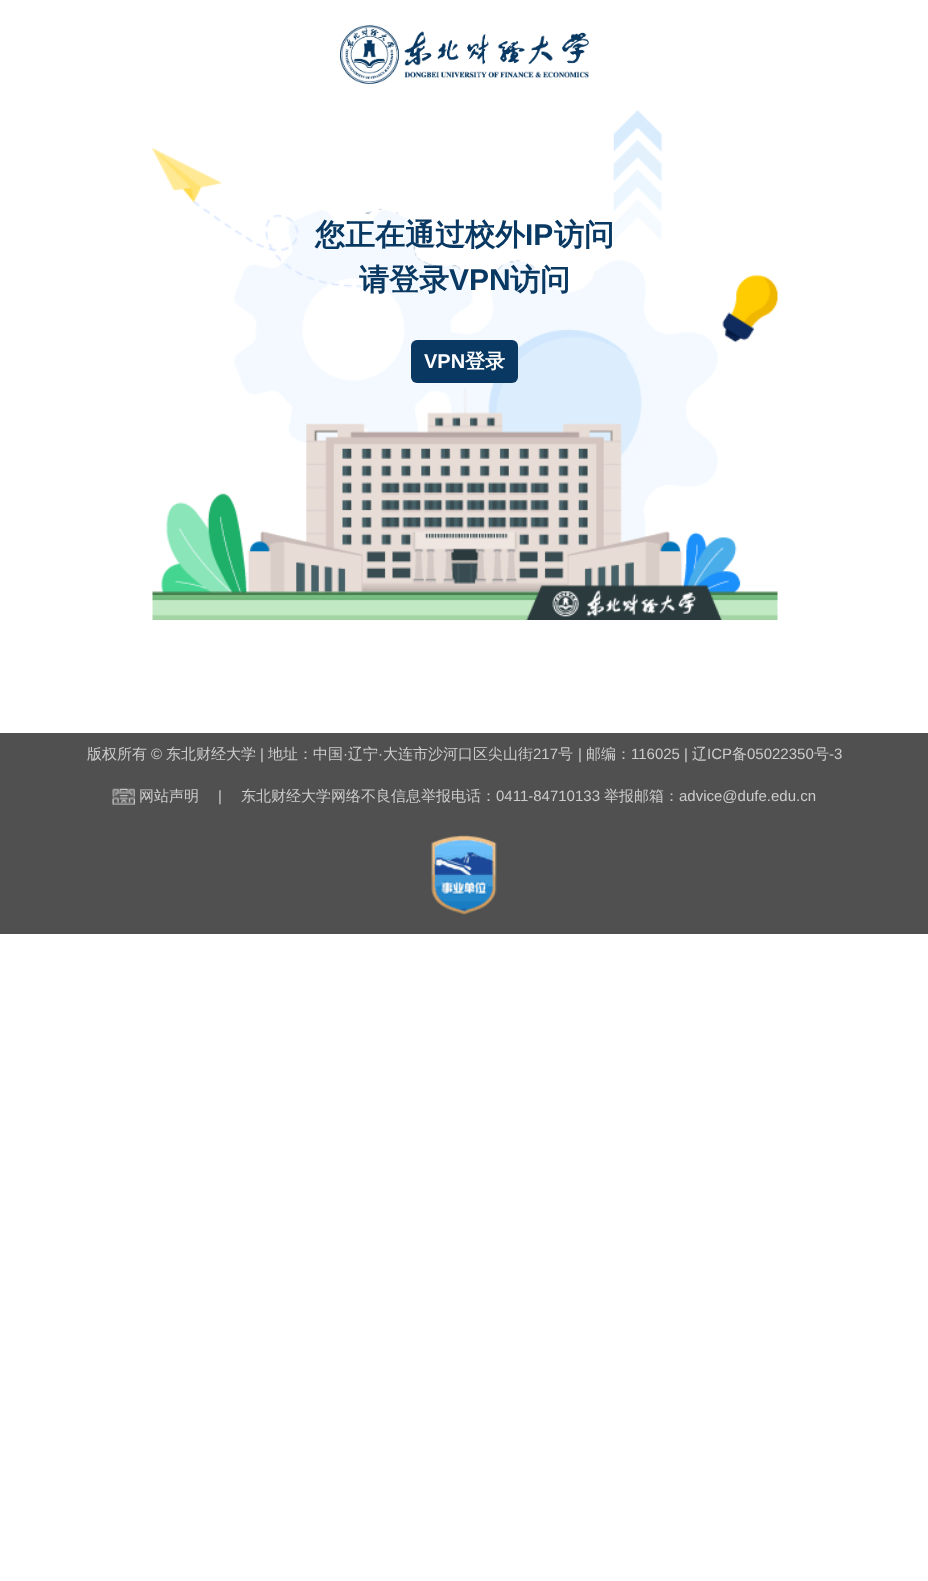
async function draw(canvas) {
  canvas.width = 928;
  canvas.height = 1581;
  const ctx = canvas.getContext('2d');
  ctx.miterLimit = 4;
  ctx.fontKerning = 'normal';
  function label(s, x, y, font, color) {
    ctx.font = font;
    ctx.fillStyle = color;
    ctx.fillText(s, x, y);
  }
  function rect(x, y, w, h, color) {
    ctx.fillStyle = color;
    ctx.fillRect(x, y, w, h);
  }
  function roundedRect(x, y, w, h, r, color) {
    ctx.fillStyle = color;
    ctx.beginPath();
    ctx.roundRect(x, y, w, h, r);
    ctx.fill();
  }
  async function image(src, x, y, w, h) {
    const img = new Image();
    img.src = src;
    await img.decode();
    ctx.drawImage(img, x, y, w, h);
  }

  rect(0, 0, 928, 1581, '#fff');
  await image('assets/img1.png', 340, 25, 249, 59);
  await image('assets/img2.png', 152, 110, 626, 510);
  label('您正在通过校外', 315, 245, 'bold 30px WenQuanYi Zen Hei', '#093962');
  label('IP', 525, 245, 'bold 30px Liberation Sans', '#093962');
  label('访问', 554, 245, 'bold 30px WenQuanYi Zen Hei', '#093962');
  label('请登录', 359, 290, 'bold 30px WenQuanYi Zen Hei', '#093962');
  label('VPN', 449, 290, 'bold 30px Liberation Sans', '#093962');
  label('访问', 510, 290, 'bold 30px WenQuanYi Zen Hei', '#093962');
  roundedRect(411, 340, 107, 43, 6, '#093962');
  label('VPN', 424, 368, 'bold 20px Liberation Sans', '#fff');
  label('登录', 465, 368, 'bold 20px WenQuanYi Zen Hei', '#fff');
  rect(0, 733, 928, 201, '#505050');
  label('版权所有', 87, 759, '500 15px WenQuanYi Zen Hei', '#ccc');
  label('©', 151, 759, '15px Liberation Sans', '#ccc');
  label('东北财经大学', 166, 759, '500 15px WenQuanYi Zen Hei', '#ccc');
  label('|', 260, 759, '15px Liberation Sans', '#ccc');
  label('地址：中国', 268, 759, '500 15px WenQuanYi Zen Hei', '#ccc');
  label('·', 343, 759, '15px Liberation Sans', '#ccc');
  label('辽宁', 348, 759, '500 15px WenQuanYi Zen Hei', '#ccc');
  label('·', 378, 759, '15px Liberation Sans', '#ccc');
  label('大连市沙河口区尖山街', 383, 759, '500 15px WenQuanYi Zen Hei', '#ccc');
  label('217', 533, 759, '15px Liberation Sans', '#ccc');
  label('号', 558, 759, '500 15px WenQuanYi Zen Hei', '#ccc');
  label('|', 578, 759, '15px Liberation Sans', '#ccc');
  label('邮编：', 586, 759, '500 15px WenQuanYi Zen Hei', '#ccc');
  label('116025 |', 631, 759, '15px Liberation Sans', '#ccc');
  label('辽', 692, 759, '500 15px WenQuanYi Zen Hei', '#ccc');
  label('ICP', 707, 759, '15px Liberation Sans', '#ccc');
  label('备', 732, 759, '500 15px WenQuanYi Zen Hei', '#ccc');
  label('05022350', 747, 759, '15px Liberation Sans', '#ccc');
  label('号', 814, 759, '500 15px WenQuanYi Zen Hei', '#ccc');
  label('-3', 829, 759, '15px Liberation Sans', '#ccc');
  await image('assets/img3.png', 112, 788, 23, 17);
  label('网站声明', 139, 801, '500 15px WenQuanYi Zen Hei', '#ccc');
  label('|', 218, 801, '15px Liberation Sans', '#ccc');
  label('东北财经大学网络不良信息举报电话：', 241, 801, '500 15px WenQuanYi Zen Hei', '#ccc');
  label('0411-84710133', 496, 801, '15px Liberation Sans', '#ccc');
  label('举报邮箱：', 604, 801, '500 15px WenQuanYi Zen Hei', '#ccc');
  label('advice@dufe.edu.cn', 679, 801, '15px Liberation Sans', '#ccc');
  await image('assets/img4.png', 431, 835, 66, 80);
}

draw(document.querySelector('canvas'));
